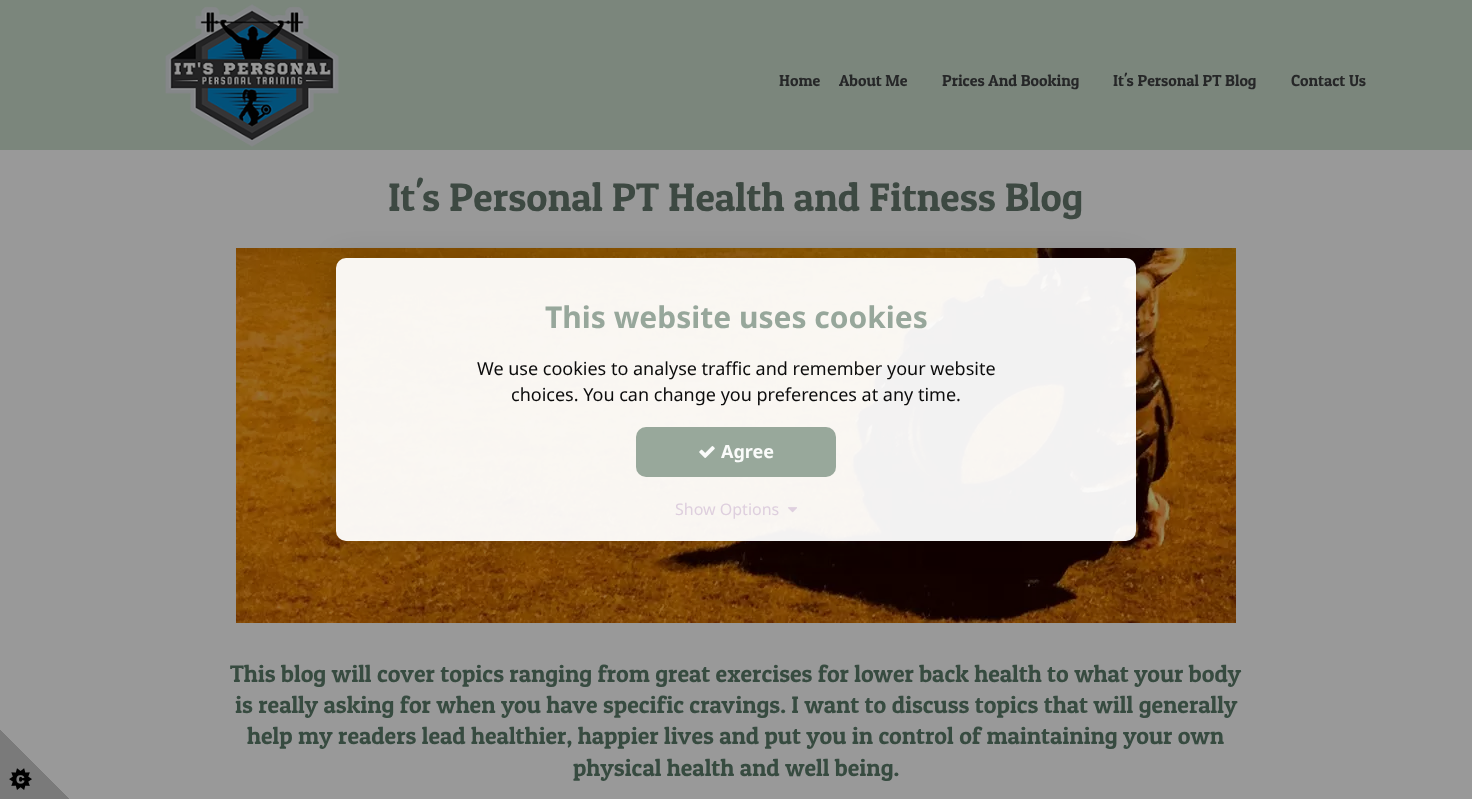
async function draw(canvas) {
  canvas.width = 1472;
  canvas.height = 799;
  const ctx = canvas.getContext('2d');
  ctx.miterLimit = 4;
  ctx.fontKerning = 'normal';
  function label(s, x, y, font, color) {
    ctx.font = font;
    ctx.fillStyle = color;
    ctx.fillText(s, x, y);
  }
  function rect(x, y, w, h, color) {
    ctx.fillStyle = color;
    ctx.fillRect(x, y, w, h);
  }
  function roundedRect(x, y, w, h, r, color) {
    ctx.fillStyle = color;
    ctx.beginPath();
    ctx.roundRect(x, y, w, h, r);
    ctx.fill();
  }
  async function image(src, x, y, w, h) {
    const img = new Image();
    img.src = src;
    await img.decode();
    ctx.drawImage(img, x, y, w, h);
  }
  let gradient, path;

  rect(0, 0, 1472, 799, '#999');
  rect(0, 0, 1472, 150, '#7b867c');
  await image('assets/img1.png', 165, 4, 174, 143);
  label('Home', 779, 86, '16px Patua One', '#262728');
  label('About Me', 839, 86, '16px Patua One', '#262728');
  label('Prices And Booking', 942, 86, '16px Patua One', '#262728');
  label('It\'s Personal PT Blog', 1113, 86, '16px Patua One', '#262728');
  label('Contact Us', 1291, 86, '16px Patua One', '#262728');
  label('It\'s Personal PT Health and Fitness Blog', 388, 211, '40px Patua One', '#3d4942');
  await image('assets/img2.png', 236, 248, 1000, 375);
  label('This blog will cover topics ranging from great exercises for lower back health to what your body', 230, 682, '24px Patua One', '#374b40');
  label('is really asking for when you have specific cravings. I want to discuss topics that will generally', 235, 713, '24px Patua One', '#374b40');
  label('help my readers lead healthier, happier lives and put you in control of maintaining your own', 247, 744, '24px Patua One', '#374b40');
  label('physical health and well being.', 573, 776, '24px Patua One', '#374b40');
  ctx.save();
  path = new Path2D('M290 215H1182V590H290ZM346 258H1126C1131.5 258 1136 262.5 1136 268V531C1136 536.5 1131.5 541 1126 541H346C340.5 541 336 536.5 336 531V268C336 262.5 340.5 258 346 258Z');
  ctx.clip(path, 'evenodd');
  ctx.fillStyle = '#00000026';
  ctx.filter = 'blur(15px)';
  ctx.beginPath();
  ctx.roundRect(336, 261, 800, 283, 10);
  ctx.fill();
  ctx.filter = 'none';
  ctx.restore();
  roundedRect(336, 258, 800, 283, 10, '#fffffff2');
  label('This website uses cookies', 545, 328, 'bold 30px Noto Sans', '#97a79b');
  label('We use cookies to analyse traffic and remember your website', 477, 375, '18px Noto Sans', '#0c0c0c');
  label('choices. You can change you preferences at any time.', 511, 401, '18px Noto Sans', '#0c0c0c');
  roundedRect(636, 427, 200, 50, 10, '#92a396f2');
  await image('assets/img3.png', 699, 446, 16, 12);
  label('Agree', 721, 458, 'bold 18px Noto Sans', '#fafbfa');
  label('Show Options', 675, 515, '16px Noto Sans', '#decfde');
  await image('assets/img4.png', 788, 507, 9, 6);
  gradient = ctx.createLinearGradient(70, 729, 0, 799);
  gradient.addColorStop(0.5, '#999');
  gradient.addColorStop(0.5, '#7a7a7a');
  ctx.fillStyle = gradient;
  ctx.fillRect(0, 729, 70, 70);
  await image('assets/img5.png', 9, 768, 23, 22);
}

draw(document.querySelector('canvas'));
